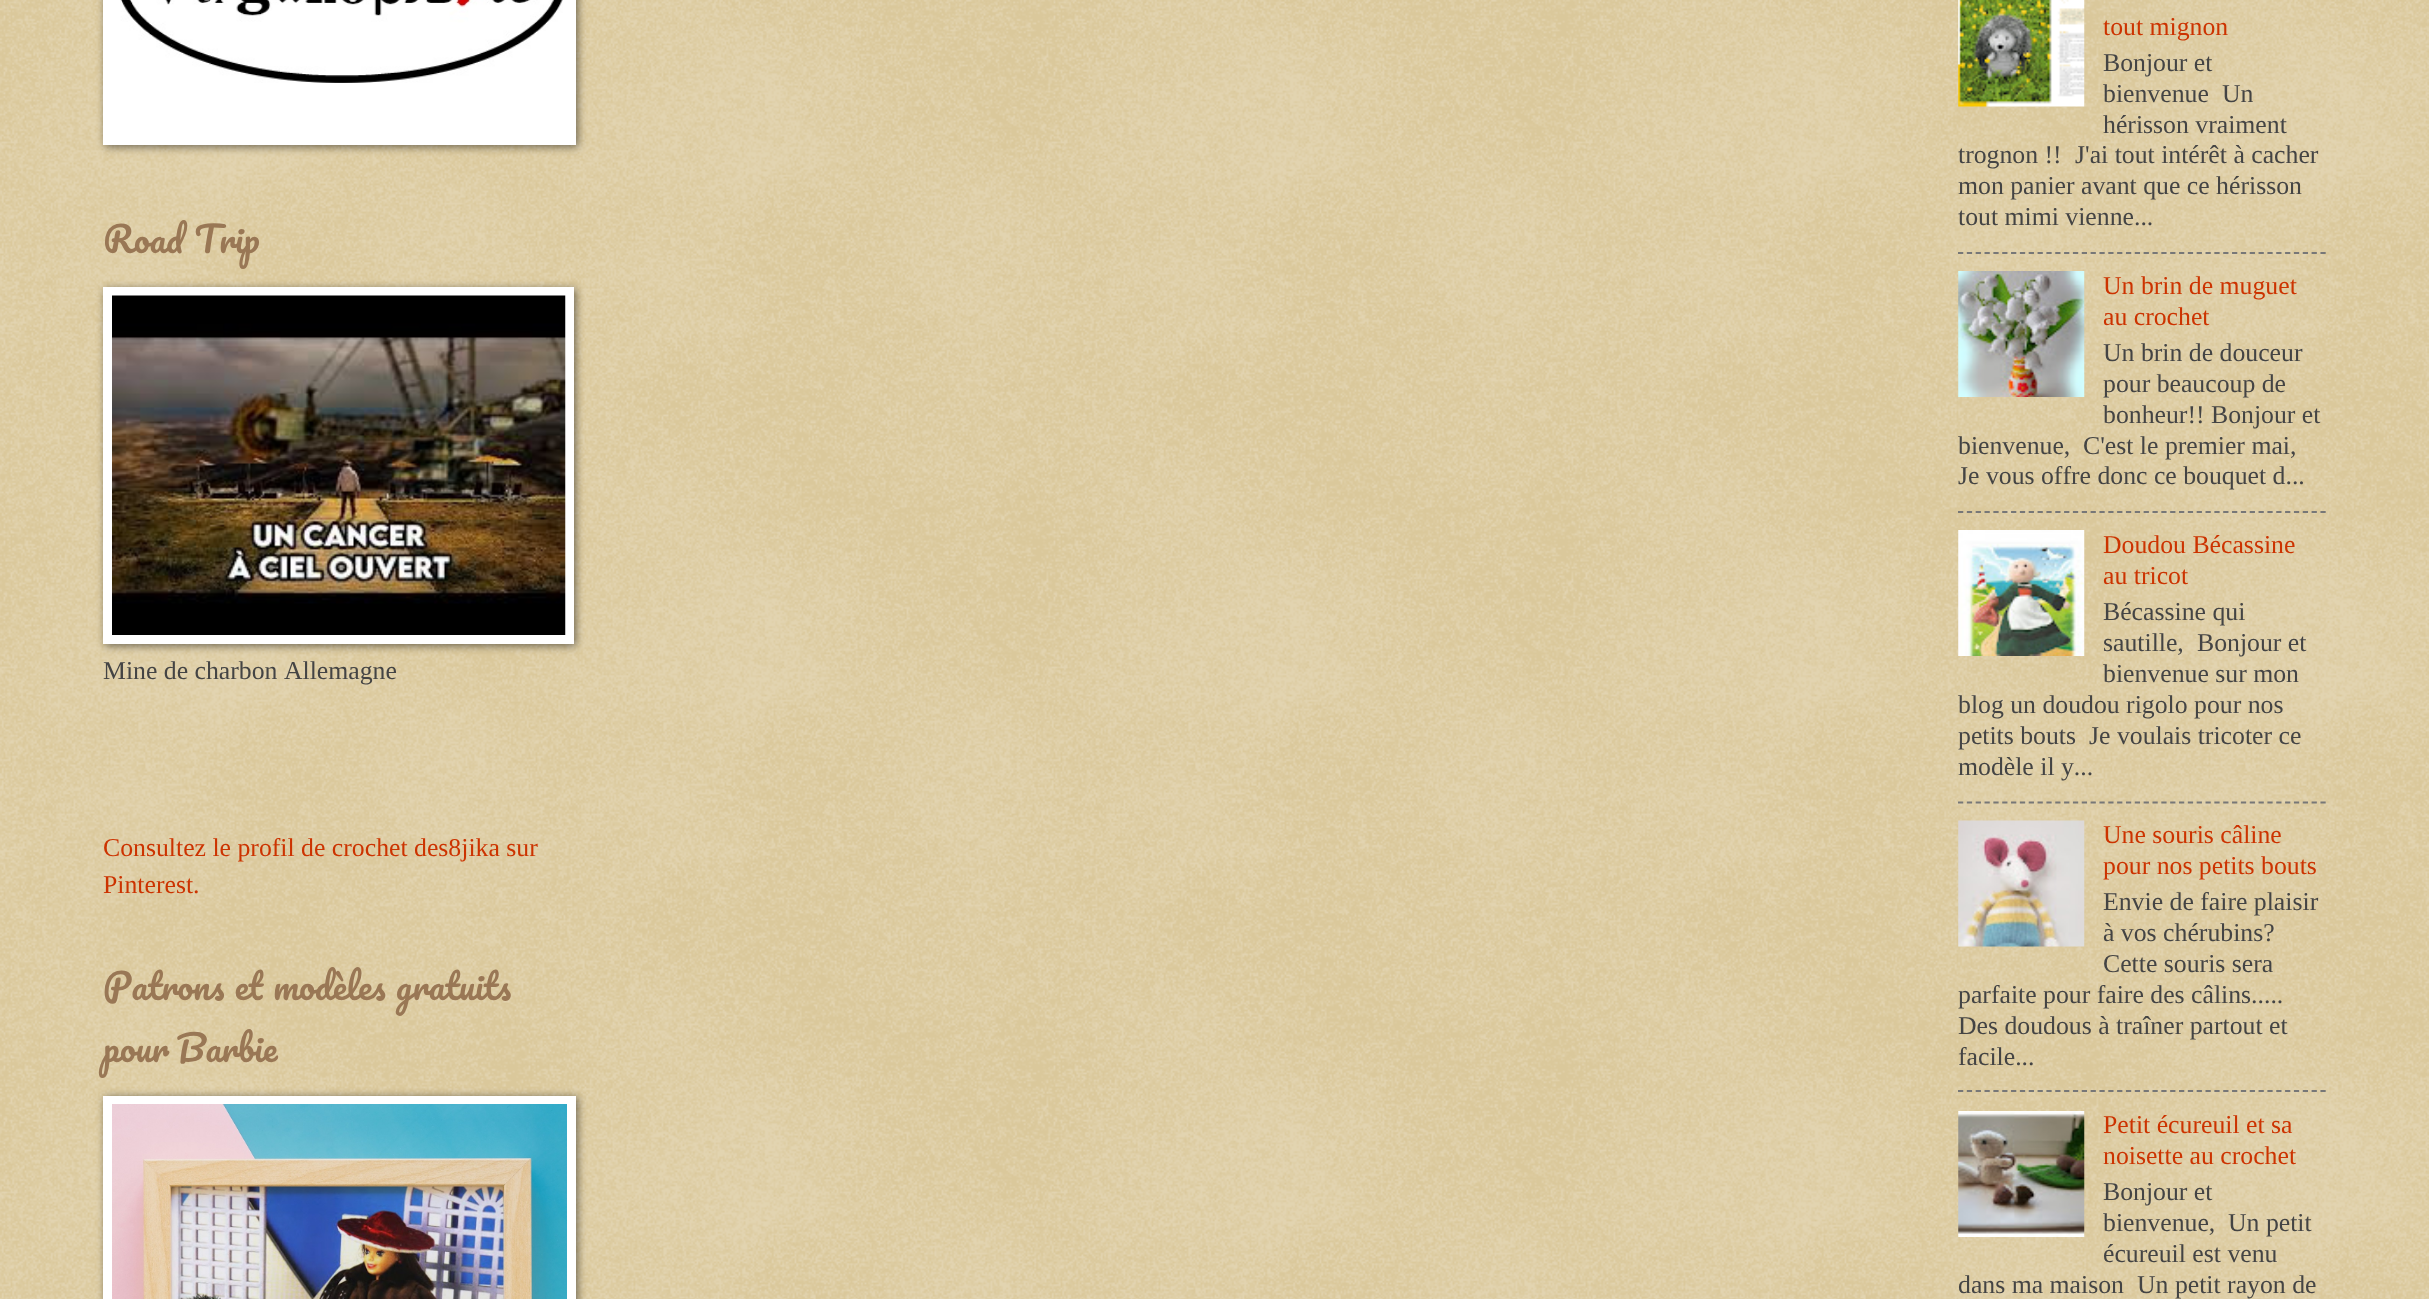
async function draw(canvas) {
  canvas.width = 2429;
  canvas.height = 1299;
  const ctx = canvas.getContext('2d');
  ctx.miterLimit = 4;
  ctx.fontKerning = 'none';
  function label(s, x, y, font, color) {
    ctx.font = font;
    ctx.fillStyle = color;
    ctx.fillText(s, x, y);
  }
  function rect(x, y, w, h, color) {
    ctx.fillStyle = color;
    ctx.fillRect(x, y, w, h);
  }
  async function image(src, x, y, w, h) {
    const img = new Image();
    img.src = src;
    await img.decode();
    ctx.drawImage(img, x, y, w, h);
  }
  let path;

  rect(0, 0, 2429, 1299, '#c0a154');
  await image('assets/img1.png', 0, 0, 2429, 1299);
  ctx.fillStyle = '#00000080';
  ctx.filter = 'blur(4.5px)';
  ctx.beginPath();
  ctx.rect(105, -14, 473, 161);
  ctx.fill();
  ctx.filter = 'none';
  rect(103, 0, 473, 145, '#fff');
  await image('assets/img2.png', 120, 0, 443, 83);
  ctx.wordSpacing = '2px';
  label('Road Trip', 103, 253, '35px Pacifico', '#975');
  ctx.fillStyle = '#00000080';
  ctx.filter = 'blur(4.5px)';
  ctx.beginPath();
  ctx.rect(105, 289, 471, 357);
  ctx.fill();
  ctx.filter = 'none';
  rect(103, 287, 471, 357, '#fff');
  await image('assets/img3.png', 112, 295, 454, 340);
  ctx.wordSpacing = '0px';
  label('Mine de charbon Allemagne', 103, 679, '25.75px Liberation Serif', '#444');
  label('Consultez le profil de crochet des8jika sur', 103, 856, '25.75px Liberation Serif', '#c30');
  label('Pinterest.', 103, 893, '25.75px Liberation Serif', '#c30');
  ctx.wordSpacing = '1px';
  label('Patrons et modèles gratuits', 103, 1000, '35px Pacifico', '#975');
  ctx.wordSpacing = '-2px';
  label('pour Barbie', 103, 1062, '35px Pacifico', '#975');
  ctx.fillStyle = '#00000080';
  ctx.filter = 'blur(4.5px)';
  ctx.beginPath();
  ctx.rect(105, 1097, 473, 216);
  ctx.fill();
  ctx.filter = 'none';
  rect(103, 1096, 473, 203, '#fff');
  await image('assets/img4.png', 112, 1104, 455, 195);
  await image('assets/img5.png', 1958, 0, 127, 107);
  ctx.wordSpacing = '0px';
  label('tout mignon', 2103, 35, '25.75px Liberation Serif', '#c30');
  label('Bonjour et', 2103, 71, '25.75px Liberation Serif', '#444');
  label('bienvenue', 2103, 102, '25.75px Liberation Serif', '#444');
  label('Un', 2222, 102, '25.75px Liberation Serif', '#444');
  label('hérisson vraiment', 2103, 133, '25.75px Liberation Serif', '#444');
  label('trognon !!', 1958, 163, '25.75px Liberation Serif', '#444');
  label('J\'ai tout intérêt à cacher', 2075, 163, '25.75px Liberation Serif', '#444');
  label('mon panier avant que ce hérisson', 1958, 194, '25.75px Liberation Serif', '#444');
  label('tout mimi vienne...', 1958, 225, '25.75px Liberation Serif', '#444');
  path = new Path2D('M1958 253H2326');
  ctx.strokeStyle = '#777';
  ctx.lineWidth = 1.8;
  ctx.setLineDash([5.25, 3.59]);
  ctx.stroke(path);
  await image('assets/img6.png', 1958, 271, 127, 126);
  label('Un brin de muguet', 2103, 294, '25.75px Liberation Serif', '#c30');
  label('au crochet', 2103, 325, '25.75px Liberation Serif', '#c30');
  label('Un brin de douceur', 2103, 361, '25.75px Liberation Serif', '#444');
  label('pour beaucoup de', 2103, 392, '25.75px Liberation Serif', '#444');
  label('bonheur!! Bonjour et', 2103, 423, '25.75px Liberation Serif', '#444');
  label('bienvenue,', 1958, 454, '25.75px Liberation Serif', '#444');
  label('C\'est le premier mai,', 2083, 454, '25.75px Liberation Serif', '#444');
  label('Je vous offre donc ce bouquet d...', 1958, 484, '25.75px Liberation Serif', '#444');
  path = new Path2D('M1958 512H2326');
  ctx.stroke(path);
  await image('assets/img7.png', 1958, 530, 127, 126);
  label('Doudou Bécassine', 2103, 553, '25.75px Liberation Serif', '#c30');
  label('au tricot', 2103, 584, '25.75px Liberation Serif', '#c30');
  label('Bécassine qui', 2103, 620, '25.75px Liberation Serif', '#444');
  label('sautille,', 2103, 651, '25.75px Liberation Serif', '#444');
  label('Bonjour et', 2197, 651, '25.75px Liberation Serif', '#444');
  label('bienvenue sur mon', 2103, 682, '25.75px Liberation Serif', '#444');
  label('blog un doudou rigolo pour nos', 1958, 713, '25.75px Liberation Serif', '#444');
  label('petits bouts', 1958, 744, '25.75px Liberation Serif', '#444');
  label('Je voulais tricoter ce', 2089, 744, '25.75px Liberation Serif', '#444');
  label('modèle il y...', 1958, 775, '25.75px Liberation Serif', '#444');
  path = new Path2D('M1958 802.5H2326');
  ctx.stroke(path);
  await image('assets/img8.png', 1958, 820, 127, 127);
  label('Une souris câline', 2103, 843, '25.75px Liberation Serif', '#c30');
  label('pour nos petits bouts', 2103, 874, '25.75px Liberation Serif', '#c30');
  label('Envie de faire plaisir', 2103, 910, '25.75px Liberation Serif', '#444');
  label('à vos chérubins?', 2103, 941, '25.75px Liberation Serif', '#444');
  label('Cette souris sera', 2103, 972, '25.75px Liberation Serif', '#444');
  label('parfaite pour faire des câlins.....', 1958, 1003, '25.75px Liberation Serif', '#444');
  label('Des doudous à traîner partout et', 1958, 1034, '25.75px Liberation Serif', '#444');
  label('facile...', 1958, 1065, '25.75px Liberation Serif', '#444');
  path = new Path2D('M1958 1091H2326');
  ctx.stroke(path);
  await image('assets/img9.png', 1958, 1111, 127, 126);
  label('Petit écureuil et sa', 2103, 1133, '25.75px Liberation Serif', '#c30');
  label('noisette au crochet', 2103, 1164, '25.75px Liberation Serif', '#c30');
  label('Bonjour et', 2103, 1200, '25.75px Liberation Serif', '#444');
  label('bienvenue,', 2103, 1231, '25.75px Liberation Serif', '#444');
  label('Un petit', 2228, 1231, '25.75px Liberation Serif', '#444');
  label('écureuil est venu', 2103, 1262, '25.75px Liberation Serif', '#444');
  label('dans ma maison', 1958, 1293, '25.75px Liberation Serif', '#444');
  label('Un petit rayon de', 2137, 1293, '25.75px Liberation Serif', '#444');
}

draw(document.querySelector('canvas'));
